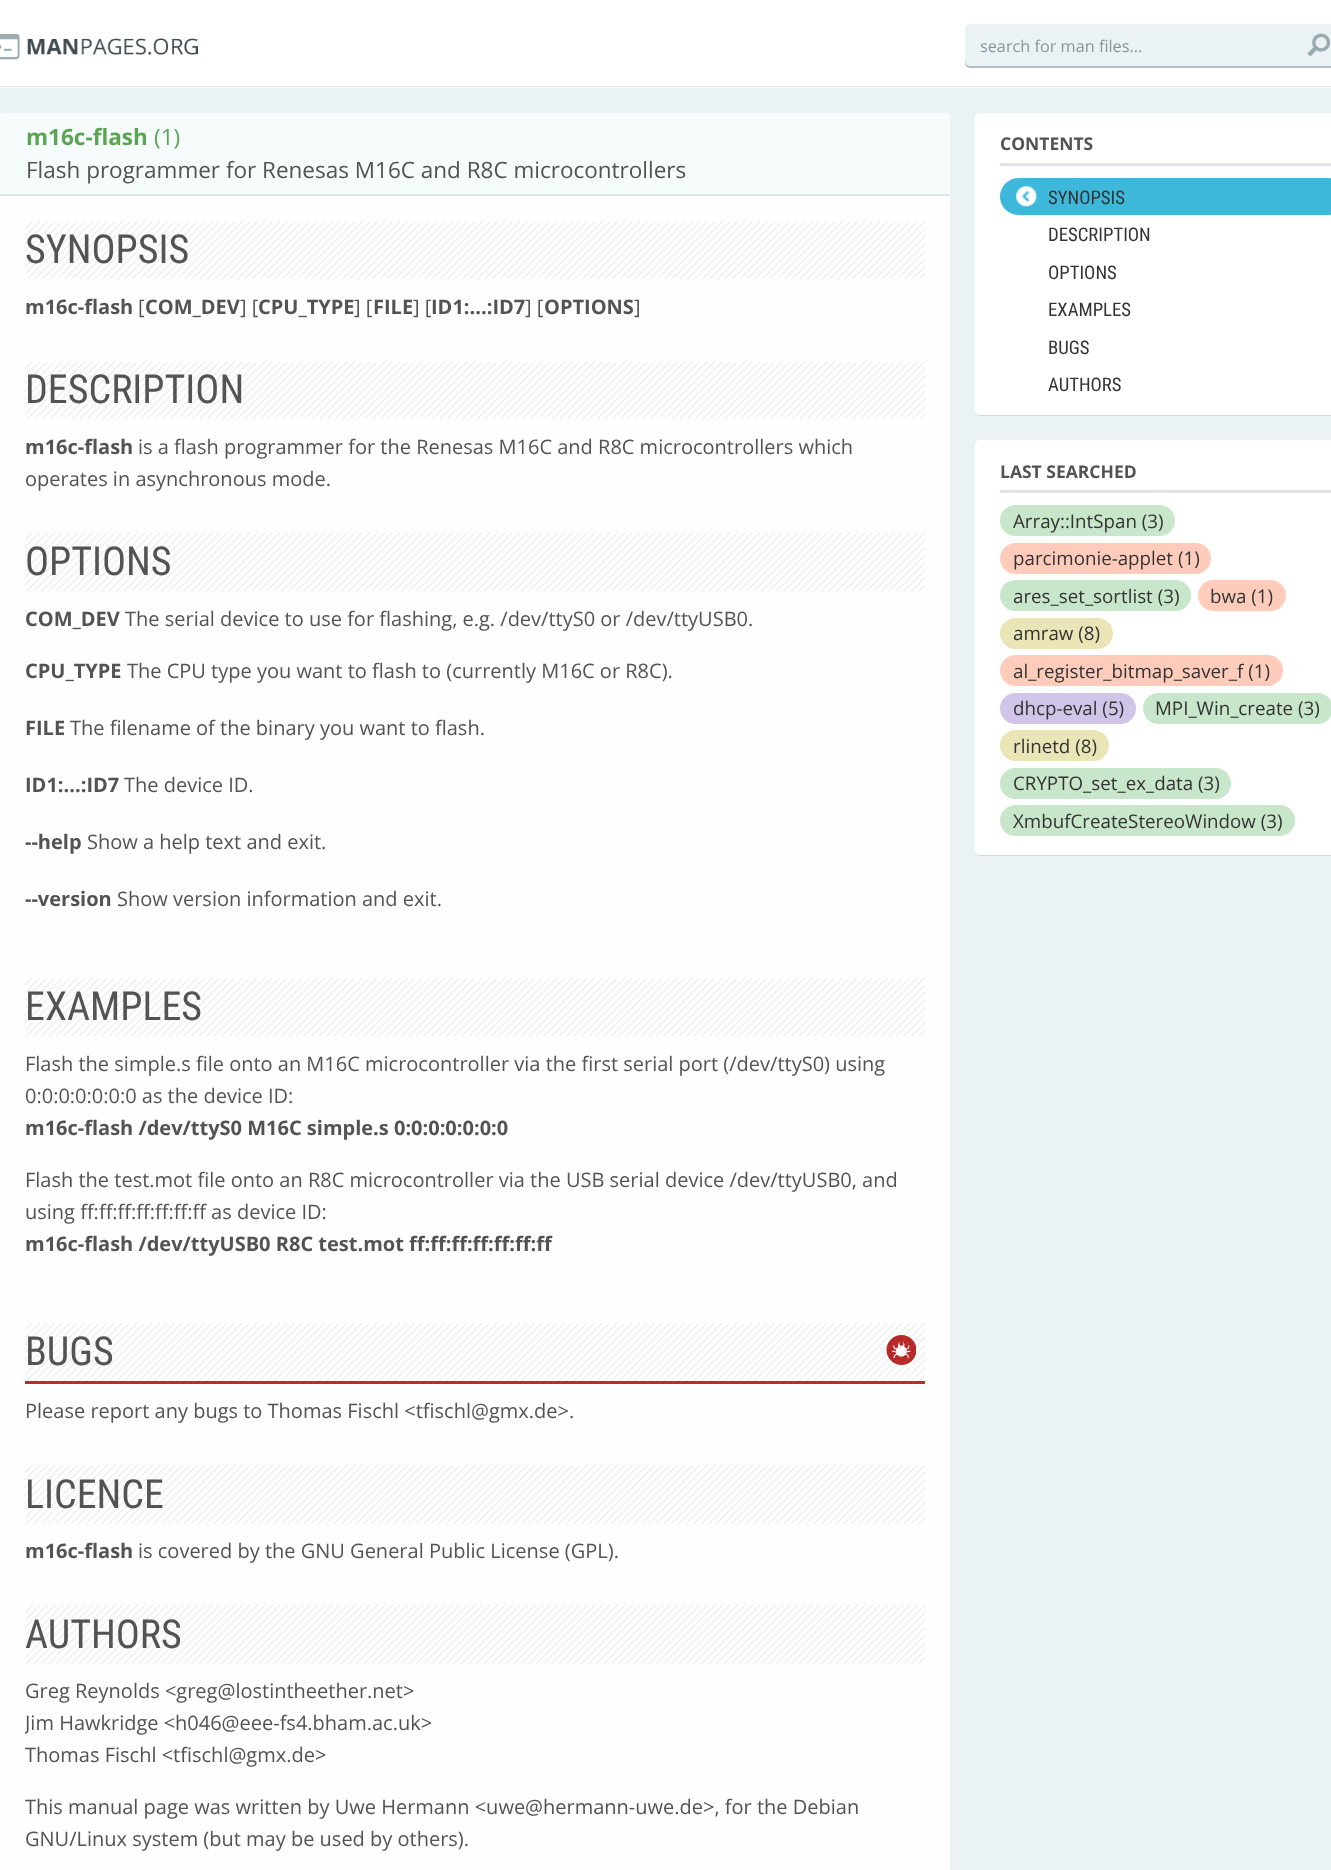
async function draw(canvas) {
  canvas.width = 1331;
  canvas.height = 1870;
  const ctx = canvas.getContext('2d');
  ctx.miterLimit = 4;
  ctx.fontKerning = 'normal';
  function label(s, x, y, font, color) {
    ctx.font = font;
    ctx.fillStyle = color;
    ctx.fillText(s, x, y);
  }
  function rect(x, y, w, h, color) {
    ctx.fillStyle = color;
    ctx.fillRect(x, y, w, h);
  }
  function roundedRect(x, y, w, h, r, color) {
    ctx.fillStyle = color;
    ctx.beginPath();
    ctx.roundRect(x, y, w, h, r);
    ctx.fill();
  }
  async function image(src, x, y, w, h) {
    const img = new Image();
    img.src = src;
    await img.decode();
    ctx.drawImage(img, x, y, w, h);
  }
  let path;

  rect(0, 0, 1331, 1870, '#eaf2f4');
  rect(0, 0, 1331, 88, '#fff');
  rect(0, 86, 1331, 1, '#dce5e7');
  await image('assets/img1.png', 0, 34, 198, 26);
  ctx.fillStyle = '#062f374d';
  ctx.filter = 'blur(0.5px)';
  ctx.beginPath();
  ctx.roundRect(965, 25, 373, 43, 5);
  ctx.fill();
  ctx.filter = 'none';
  roundedRect(965, 24, 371, 42, 5, '#eaf2f4');
  label('search for man files...', 980, 52, '16.25px Open Sans', '#86969d');
  await image('assets/img2.png', 1307, 33, 24, 24);
  ctx.fillStyle = '#fefefe';
  ctx.beginPath();
  ctx.roundRect(0, 113, 950, 1757, [5, 5, 0, 0]);
  ctx.fill();
  ctx.fillStyle = '#f6fbfc';
  ctx.beginPath();
  ctx.roundRect(0, 113, 950, 83, [4, 4, 0, 0]);
  ctx.fill();
  ctx.fillStyle = '#dfe3e9';
  path = new Path2D('M950 196H0L1 194H949Z');
  ctx.fill(path);
  label('m16c-flash', 26, 145, 'bold 22.5px Open Sans', '#59a552');
  label('(1)', 154, 145, '22.5px Open Sans', '#59a552');
  label('Flash programmer for Renesas M16C and R8C microcontrollers', 26, 178, '22.5px Open Sans', '#535353');
  await image('assets/img3.png', 25, 221, 900, 58);
  label('SYNOPSIS', 25, 263, '40px Roboto Condensed', '#535353');
  label('m16c-flash', 25, 314, 'bold 20px Open Sans', '#535353');
  label('[', 138, 314, '20px Open Sans', '#535353');
  label('COM_DEV', 145, 314, 'bold 20px Open Sans', '#535353');
  label('] [', 240, 314, '20px Open Sans', '#535353');
  label('CPU_TYPE', 258, 314, 'bold 20px Open Sans', '#535353');
  label('] [', 354, 314, '20px Open Sans', '#535353');
  label('FILE', 373, 314, 'bold 20px Open Sans', '#535353');
  label('] [', 413, 314, '20px Open Sans', '#535353');
  label('ID1:...:ID7', 431, 314, 'bold 20px Open Sans', '#535353');
  label('] [', 525, 314, '20px Open Sans', '#535353');
  label('OPTIONS', 544, 314, 'bold 20px Open Sans', '#535353');
  label(']', 634, 314, '20px Open Sans', '#535353');
  await image('assets/img3.png', 25, 361, 900, 58);
  label('DESCRIPTION', 25, 403, '40px Roboto Condensed', '#535353');
  label('m16c-flash', 25, 454, 'bold 20px Open Sans', '#535353');
  label('is a flash programmer for the Renesas M16C and R8C microcontrollers which', 138, 454, '20px Open Sans', '#535353');
  label('operates in asynchronous mode.', 25, 486, '20px Open Sans', '#535353');
  await image('assets/img4.png', 25, 533, 900, 58);
  label('OPTIONS', 25, 575, '40px Roboto Condensed', '#535353');
  label('COM_DEV', 25, 626, 'bold 20px Open Sans', '#535353');
  label('The serial device to use for flashing, e.g. /dev/ttyS0 or /dev/ttyUSB0.', 125, 626, '20px Open Sans', '#535353');
  label('CPU_TYPE', 25, 678, 'bold 20px Open Sans', '#535353');
  label('The CPU type you want to flash to (currently M16C or R8C).', 127, 678, '20px Open Sans', '#535353');
  label('FILE', 25, 735, 'bold 20px Open Sans', '#535353');
  label('The filename of the binary you want to flash.', 70, 735, '20px Open Sans', '#535353');
  label('ID1:...:ID7', 25, 792, 'bold 20px Open Sans', '#535353');
  label('The device ID.', 124, 792, '20px Open Sans', '#535353');
  label('--help', 25, 849, 'bold 20px Open Sans', '#535353');
  label('Show a help text and exit.', 87, 849, '20px Open Sans', '#535353');
  label('--version', 25, 906, 'bold 20px Open Sans', '#535353');
  label('Show version information and exit.', 117, 906, '20px Open Sans', '#535353');
  await image('assets/img4.png', 25, 978, 900, 58);
  label('EXAMPLES', 25, 1020, '40px Roboto Condensed', '#535353');
  label('Flash the simple.s file onto an M16C microcontroller via the first serial port (/dev/ttyS0) using', 25, 1071, '20px Open Sans', '#535353');
  label('0:0:0:0:0:0:0 as the device ID:', 25, 1103, '20px Open Sans', '#535353');
  label('m16c-flash /dev/ttyS0 M16C simple.s 0:0:0:0:0:0:0', 25, 1135, 'bold 20px Open Sans', '#535353');
  label('Flash the test.mot file onto an R8C microcontroller via the USB serial device /dev/ttyUSB0, and', 25, 1187, '20px Open Sans', '#535353');
  label('using ff:ff:ff:ff:ff:ff:ff as device ID:', 25, 1219, '20px Open Sans', '#535353');
  label('m16c-flash /dev/ttyUSB0 R8C test.mot ff:ff:ff:ff:ff:ff:ff', 25, 1251, 'bold 20px Open Sans', '#535353');
  await image('assets/img5.png', 886, 1335, 30, 30);
  await image('assets/img6.png', 25, 1323, 900, 58);
  rect(25, 1381, 900, 3, '#ba2b2b');
  label('BUGS', 25, 1365, '40px Roboto Condensed', '#535353');
  label('Please report any bugs to Thomas Fischl <tfischl@gmx.de>.', 25, 1418, '20px Open Sans', '#535353');
  await image('assets/img7.png', 25, 1465, 900, 59);
  label('LICENCE', 25, 1508, '40px Roboto Condensed', '#535353');
  label('m16c-flash', 25, 1558, 'bold 20px Open Sans', '#535353');
  label('is covered by the GNU General Public License (GPL).', 138, 1558, '20px Open Sans', '#535353');
  await image('assets/img7.png', 25, 1605, 900, 59);
  label('AUTHORS', 25, 1648, '40px Roboto Condensed', '#535353');
  label('Greg Reynolds <greg@lostintheether.net>', 25, 1698, '20px Open Sans', '#535353');
  ctx.save();
  ctx.beginPath();
  ctx.rect(25, 1605, 900, 265);
  ctx.clip();
  label('Jim Hawkridge <', 25, 1730, '20px Open Sans', '#535353');
  ctx.restore();
  label('h046@eee-fs4.bham.ac.uk>', 175, 1730, '20px Open Sans', '#535353');
  label('Thomas Fischl <tfischl@gmx.de>', 25, 1762, '20px Open Sans', '#535353');
  label('This manual page was written by Uwe Hermann <uwe@hermann-uwe.de>, for the Debian', 25, 1814, '20px Open Sans', '#535353');
  label('GNU/Linux system (but may be used by others).', 25, 1846, '20px Open Sans', '#535353');
  ctx.fillStyle = '#0000001a';
  ctx.filter = 'blur(0.5px)';
  ctx.beginPath();
  ctx.roundRect(975, 114, 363, 302, 5);
  ctx.fill();
  ctx.filter = 'none';
  ctx.fillStyle = '#fff';
  path = new Path2D('M980 113H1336V415H980C977 415 975 413 975 410V118C975 115 977 113 980 113Z');
  ctx.fill(path);
  rect(1000, 163, 331, 3, '#dfe3e9');
  label('CONTENTS', 1000, 150, 'bold 17.5px Open Sans', '#535353');
  roundedRect(1000, 178, 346, 37, 18.5, '#3db8db');
  await image('assets/img8.png', 1016, 186, 21, 21);
  label('SYNOPSIS', 1048, 204, '18.75px Roboto Condensed', '#333');
  label('DESCRIPTION', 1048, 241, '18.75px Roboto Condensed', '#333');
  label('OPTIONS', 1048, 279, '18.75px Roboto Condensed', '#333');
  label('EXAMPLES', 1048, 316, '18.75px Roboto Condensed', '#333');
  label('BUGS', 1048, 354, '18.75px Roboto Condensed', '#333');
  label('AUTHORS', 1048, 391, '18.75px Roboto Condensed', '#333');
  ctx.fillStyle = '#0000001a';
  ctx.filter = 'blur(0.5px)';
  ctx.beginPath();
  ctx.roundRect(975, 441, 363, 415, 5);
  ctx.fill();
  ctx.filter = 'none';
  ctx.fillStyle = '#fff';
  path = new Path2D('M980 440H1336V855H980C977 855 975 853 975 850V445C975 442 977 440 980 440Z');
  ctx.fill(path);
  rect(1000, 490, 331, 3, '#dfe3e9');
  label('LAST SEARCHED', 1000, 478, 'bold 17.5px Open Sans', '#535353');
  roundedRect(1000, 505, 175, 31, 15.5, '#c8e6c9');
  label('Array::IntSpan (3)', 1013, 528, '18.75px Open Sans', '#333');
  roundedRect(1000, 543, 211, 31, 15.5, '#ffccbc');
  label('parcimonie-applet (1)', 1013, 565, '18.75px Open Sans', '#333');
  roundedRect(1000, 580, 191, 31, 15.5, '#c8e6c9');
  label('ares_set_sortlist (3)', 1013, 603, '18.75px Open Sans', '#333');
  roundedRect(1198, 580, 88, 31, 15.5, '#ffccbc');
  label('bwa (1)', 1210, 603, '18.75px Open Sans', '#333');
  roundedRect(1000, 618, 113, 31, 15.5, '#eae5b7');
  label('amraw (8)', 1013, 640, '18.75px Open Sans', '#333');
  roundedRect(1000, 655, 283, 31, 15.5, '#ffccbc');
  label('al_register_bitmap_saver_f (1)', 1013, 678, '18.75px Open Sans', '#333');
  roundedRect(1000, 693, 136, 31, 15.5, '#d1c4e9');
  label('dhcp-eval (5)', 1013, 715, '18.75px Open Sans', '#333');
  roundedRect(1143, 693, 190, 31, 15.5, '#c8e6c9');
  label('MPI_Win_create (3)', 1155, 715, '18.75px Open Sans', '#333');
  roundedRect(1000, 730, 109, 31, 15.5, '#eae5b7');
  label('rlinetd (8)', 1013, 753, '18.75px Open Sans', '#333');
  roundedRect(1000, 768, 231, 31, 15.5, '#c8e6c9');
  label('CRYPTO_set_ex_data (3)', 1013, 790, '18.75px Open Sans', '#333');
  roundedRect(1000, 805, 295, 31, 15.5, '#c8e6c9');
  label('XmbufCreateStereoWindow (3)', 1013, 828, '18.75px Open Sans', '#333');
}

draw(document.querySelector('canvas'));
